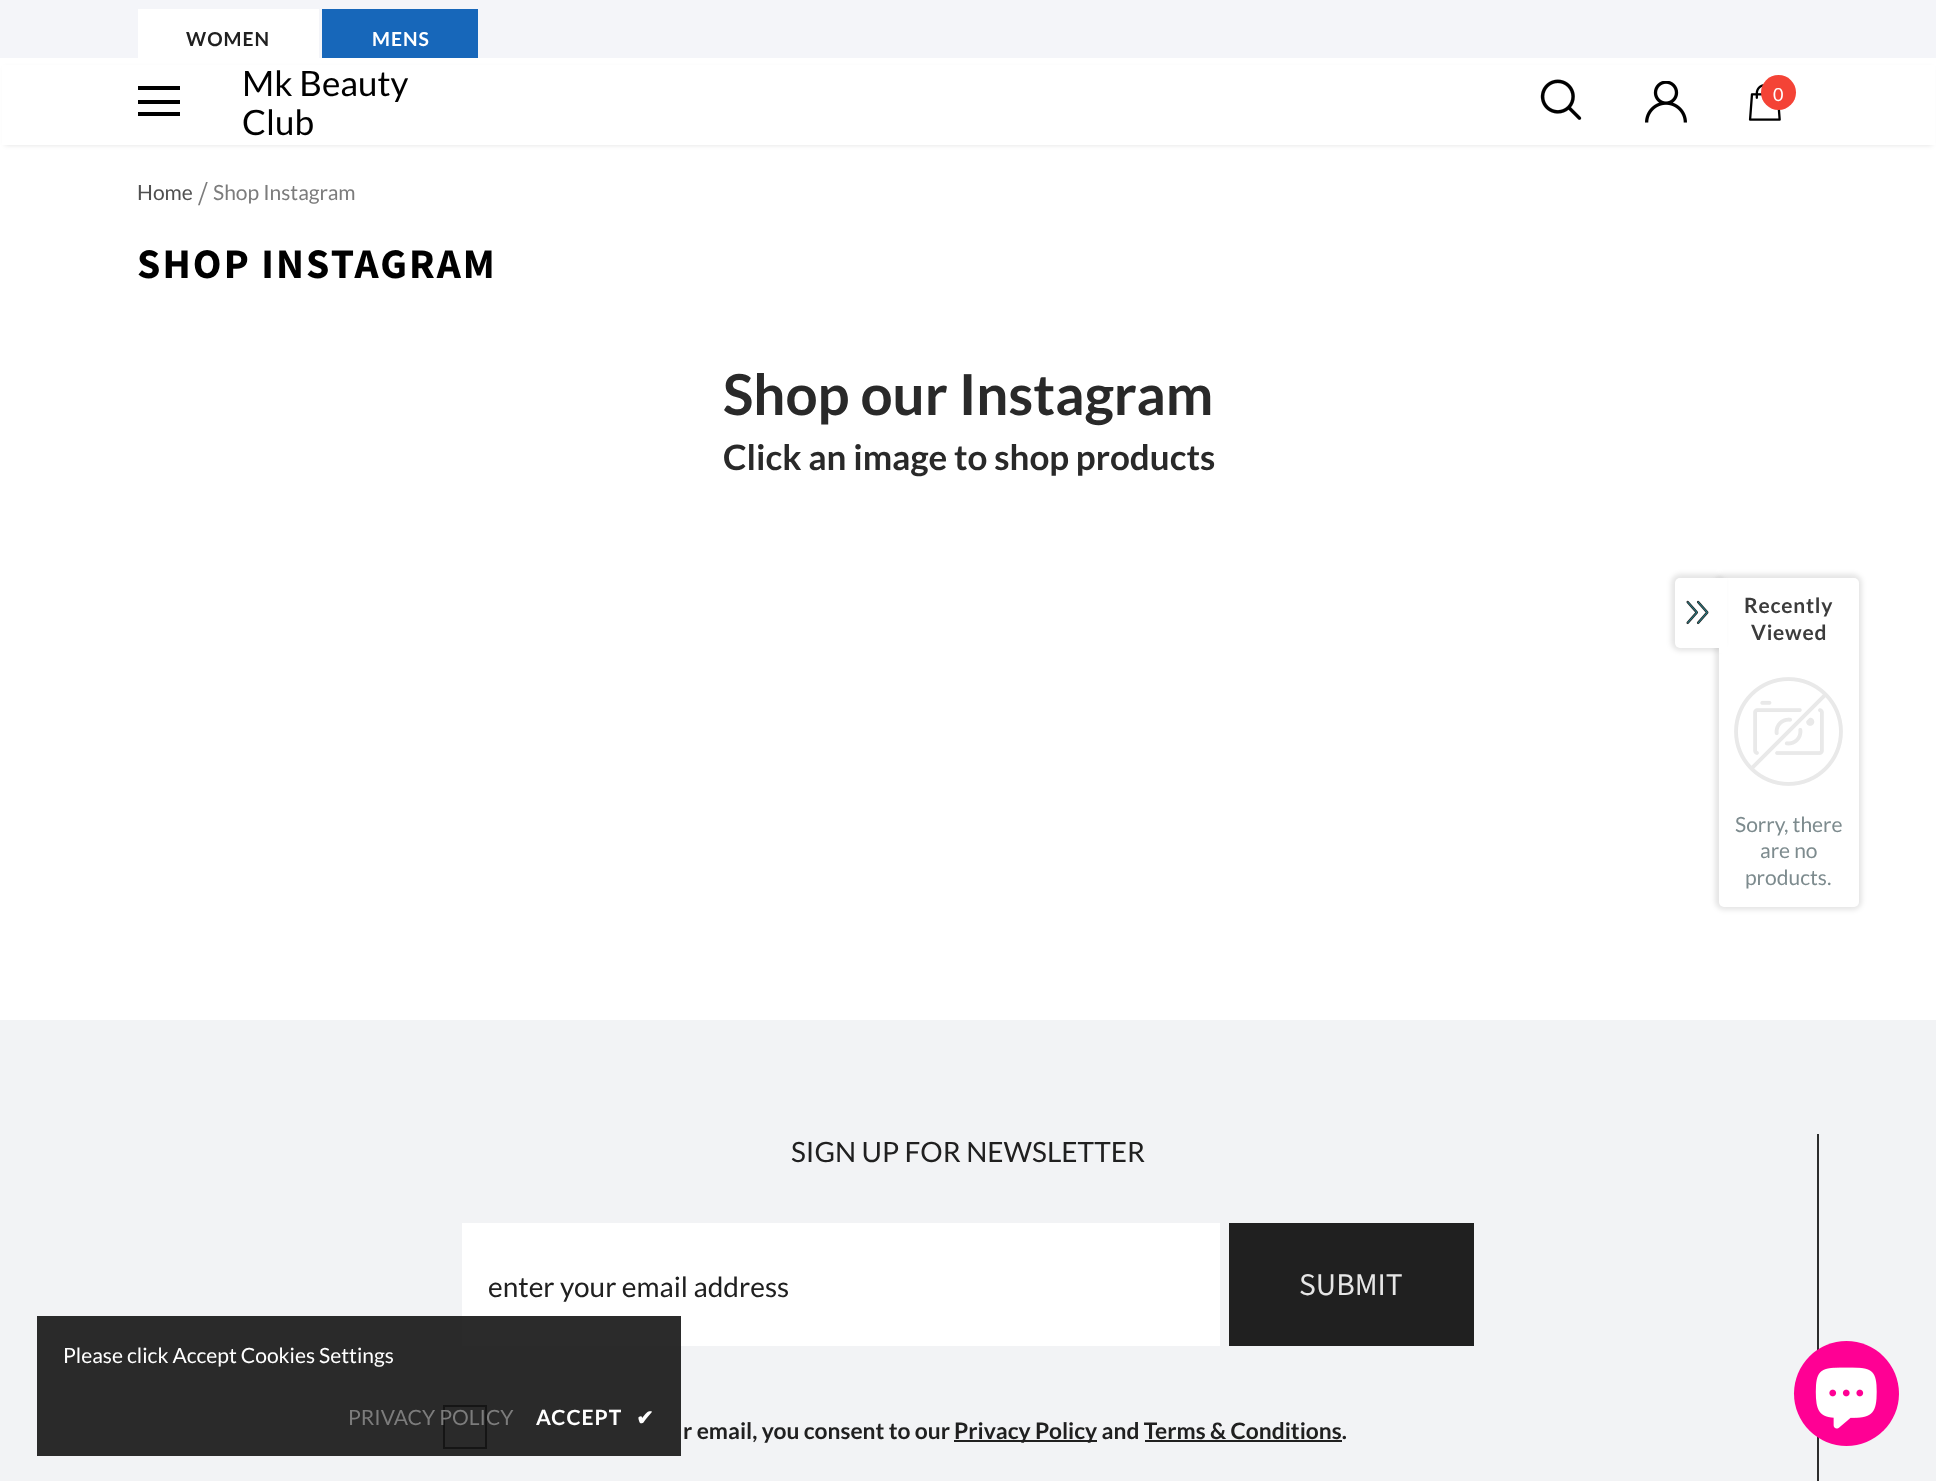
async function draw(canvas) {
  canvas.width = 1936;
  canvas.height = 1481;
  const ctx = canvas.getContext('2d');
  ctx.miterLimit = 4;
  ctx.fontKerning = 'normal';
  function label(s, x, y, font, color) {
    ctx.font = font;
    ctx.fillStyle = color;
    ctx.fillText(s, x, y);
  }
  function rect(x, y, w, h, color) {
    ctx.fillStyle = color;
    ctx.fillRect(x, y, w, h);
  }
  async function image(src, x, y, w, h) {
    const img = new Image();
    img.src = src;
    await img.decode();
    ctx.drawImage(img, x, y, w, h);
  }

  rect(0, 0, 1936, 1481, '#fff');
  rect(0, 0, 1936, 58, '#f4f5f9');
  rect(138, 9, 181, 49, '#fff');
  ctx.letterSpacing = '1px';
  label('WOMEN', 186, 46, 'bold 19.25px Lato', '#202020');
  rect(322, 9, 156, 49, '#1767ba');
  label('MENS', 372, 46, 'bold 19.25px Lato', '#fff');
  ctx.fillStyle = '#0000001f';
  ctx.filter = 'blur(2.5px)';
  ctx.beginPath();
  ctx.rect(5, 68, 1927, 77);
  ctx.fill();
  ctx.filter = 'none';
  rect(2, 65, 1933, 80, '#fff');
  rect(138, 86, 42, 4, '#000');
  rect(138, 100, 42, 4, '#000');
  rect(138, 112, 42, 4, '#000');
  ctx.letterSpacing = '0px';
  label('Mk Beauty', 242, 96, '35px Lato', '#000');
  label('Club', 242, 135, '35px Lato', '#000');
  await image('assets/img1.png', 1540, 79, 42, 41);
  await image('assets/img2.png', 1645, 81, 42, 42);
  await image('assets/img3.png', 1748, 84, 33, 37);
  ctx.fillStyle = '#f44336';
  ctx.beginPath();
  ctx.arc(1778.5, 92.5, 17.5, 0, 2 * Math.PI);
  ctx.fill();
  label('0', 1773, 101, '18px Lato', '#fff');
  label('Home', 137, 200, '21px Lato', '#505050');
  label('/', 198, 205, '35px Liberation Serif', '#7c7c7c');
  label('Shop Instagram', 213, 200, '21px Lato', '#7c7c7c');
  ctx.letterSpacing = '2.1px';
  label('SHOP INSTAGRAM', 137, 278, 'bold 42px Source Sans Pro', '#000');
  ctx.letterSpacing = '0px';
  label('Shop our Instagram', 723, 415, 'bold 56.5px Lato', '#292929');
  label('Click an image to shop products', 723, 470, 'bold 35px Lato', '#292929');
  rect(0, 1020, 1936, 461, '#f2f3f5');
  rect(462, 1223, 758, 123, '#fff');
  ctx.strokeStyle = '#202020';
  ctx.lineWidth = 2;
  ctx.strokeRect(444, 1406, 42, 42);
  rect(37, 1316, 644, 140, '#141414e6');
  label('Please click Accept Cookies Settings', 63, 1363, '21px Lato', '#fff');
  label('PRIVACY POLICY', 348, 1425, '21px Lato', '#7c7c7c');
  ctx.letterSpacing = '1px';
  label('ACCEPT', 536, 1425, 'bold 21px Lato', '#fff');
  label('✔', 636, 1425, 'bold 21px DejaVu Sans', '#fff');
  rect(1817, 1134, 2, 347, '#2d2d2d');
  ctx.letterSpacing = '0px';
  label('SIGN UP FOR NEWSLETTER', 791, 1162, '28px Lato', '#202020');
  label('enter your email address', 488, 1297, '28px Lato', '#202020');
  rect(1229, 1223, 245, 123, '#202020');
  label('SUBMIT', 1299, 1295, '31.5px Source Sans Pro', '#e6e6e6');
  label('r email, you consent to our', 683, 1439, 'bold 22.75px Lato', '#202020');
  rect(954, 1440, 143, 2, '#202020');
  label('Privacy Policy and Terms & Conditions.', 954, 1439, 'bold 22.75px Lato', '#202020');
  rect(1145, 1440, 197, 2, '#202020');
  ctx.fillStyle = '#0000001a';
  ctx.filter = 'blur(2.5px)';
  ctx.beginPath();
  ctx.roundRect(1715, 574, 147, 336, 9);
  ctx.fill();
  ctx.filter = 'none';
  ctx.fillStyle = '#fff';
  ctx.beginPath();
  ctx.roundRect(1719, 578, 140, 329, [0, 5, 5, 5]);
  ctx.fill();
  ctx.fillStyle = '#0000001a';
  ctx.filter = 'blur(2.5px)';
  ctx.beginPath();
  ctx.roundRect(1671, 574, 53, 77, 9);
  ctx.fill();
  ctx.filter = 'none';
  ctx.fillStyle = '#fff';
  ctx.beginPath();
  ctx.roundRect(1675, 578, 45, 70, [5, 0, 0, 5]);
  ctx.fill();
  await image('assets/img4.png', 1686, 600, 23, 25);
  rect(1719, 578, 8, 75, '#fff');
  ctx.letterSpacing = '0.75px';
  label('Recently', 1744, 613, 'bold 21px Lato', '#3c3c3c');
  label('Viewed', 1751, 640, 'bold 21px Lato', '#3c3c3c');
  await image('assets/img5.png', 1734, 677, 109, 109);
  ctx.letterSpacing = '0px';
  label('Sorry, there', 1735, 832, '21px Lato', '#7d8b8e');
  label('are no', 1760, 858, '21px Lato', '#7d8b8e');
  label('products.', 1745, 885, '21px Lato', '#7d8b8e');
  ctx.fillStyle = '#ff0094';
  ctx.beginPath();
  ctx.arc(1846.5, 1393.5, 52.5, 0, 2 * Math.PI);
  ctx.fill();
  await image('assets/img6.png', 1815, 1367, 62, 62);
}

draw(document.querySelector('canvas'));
